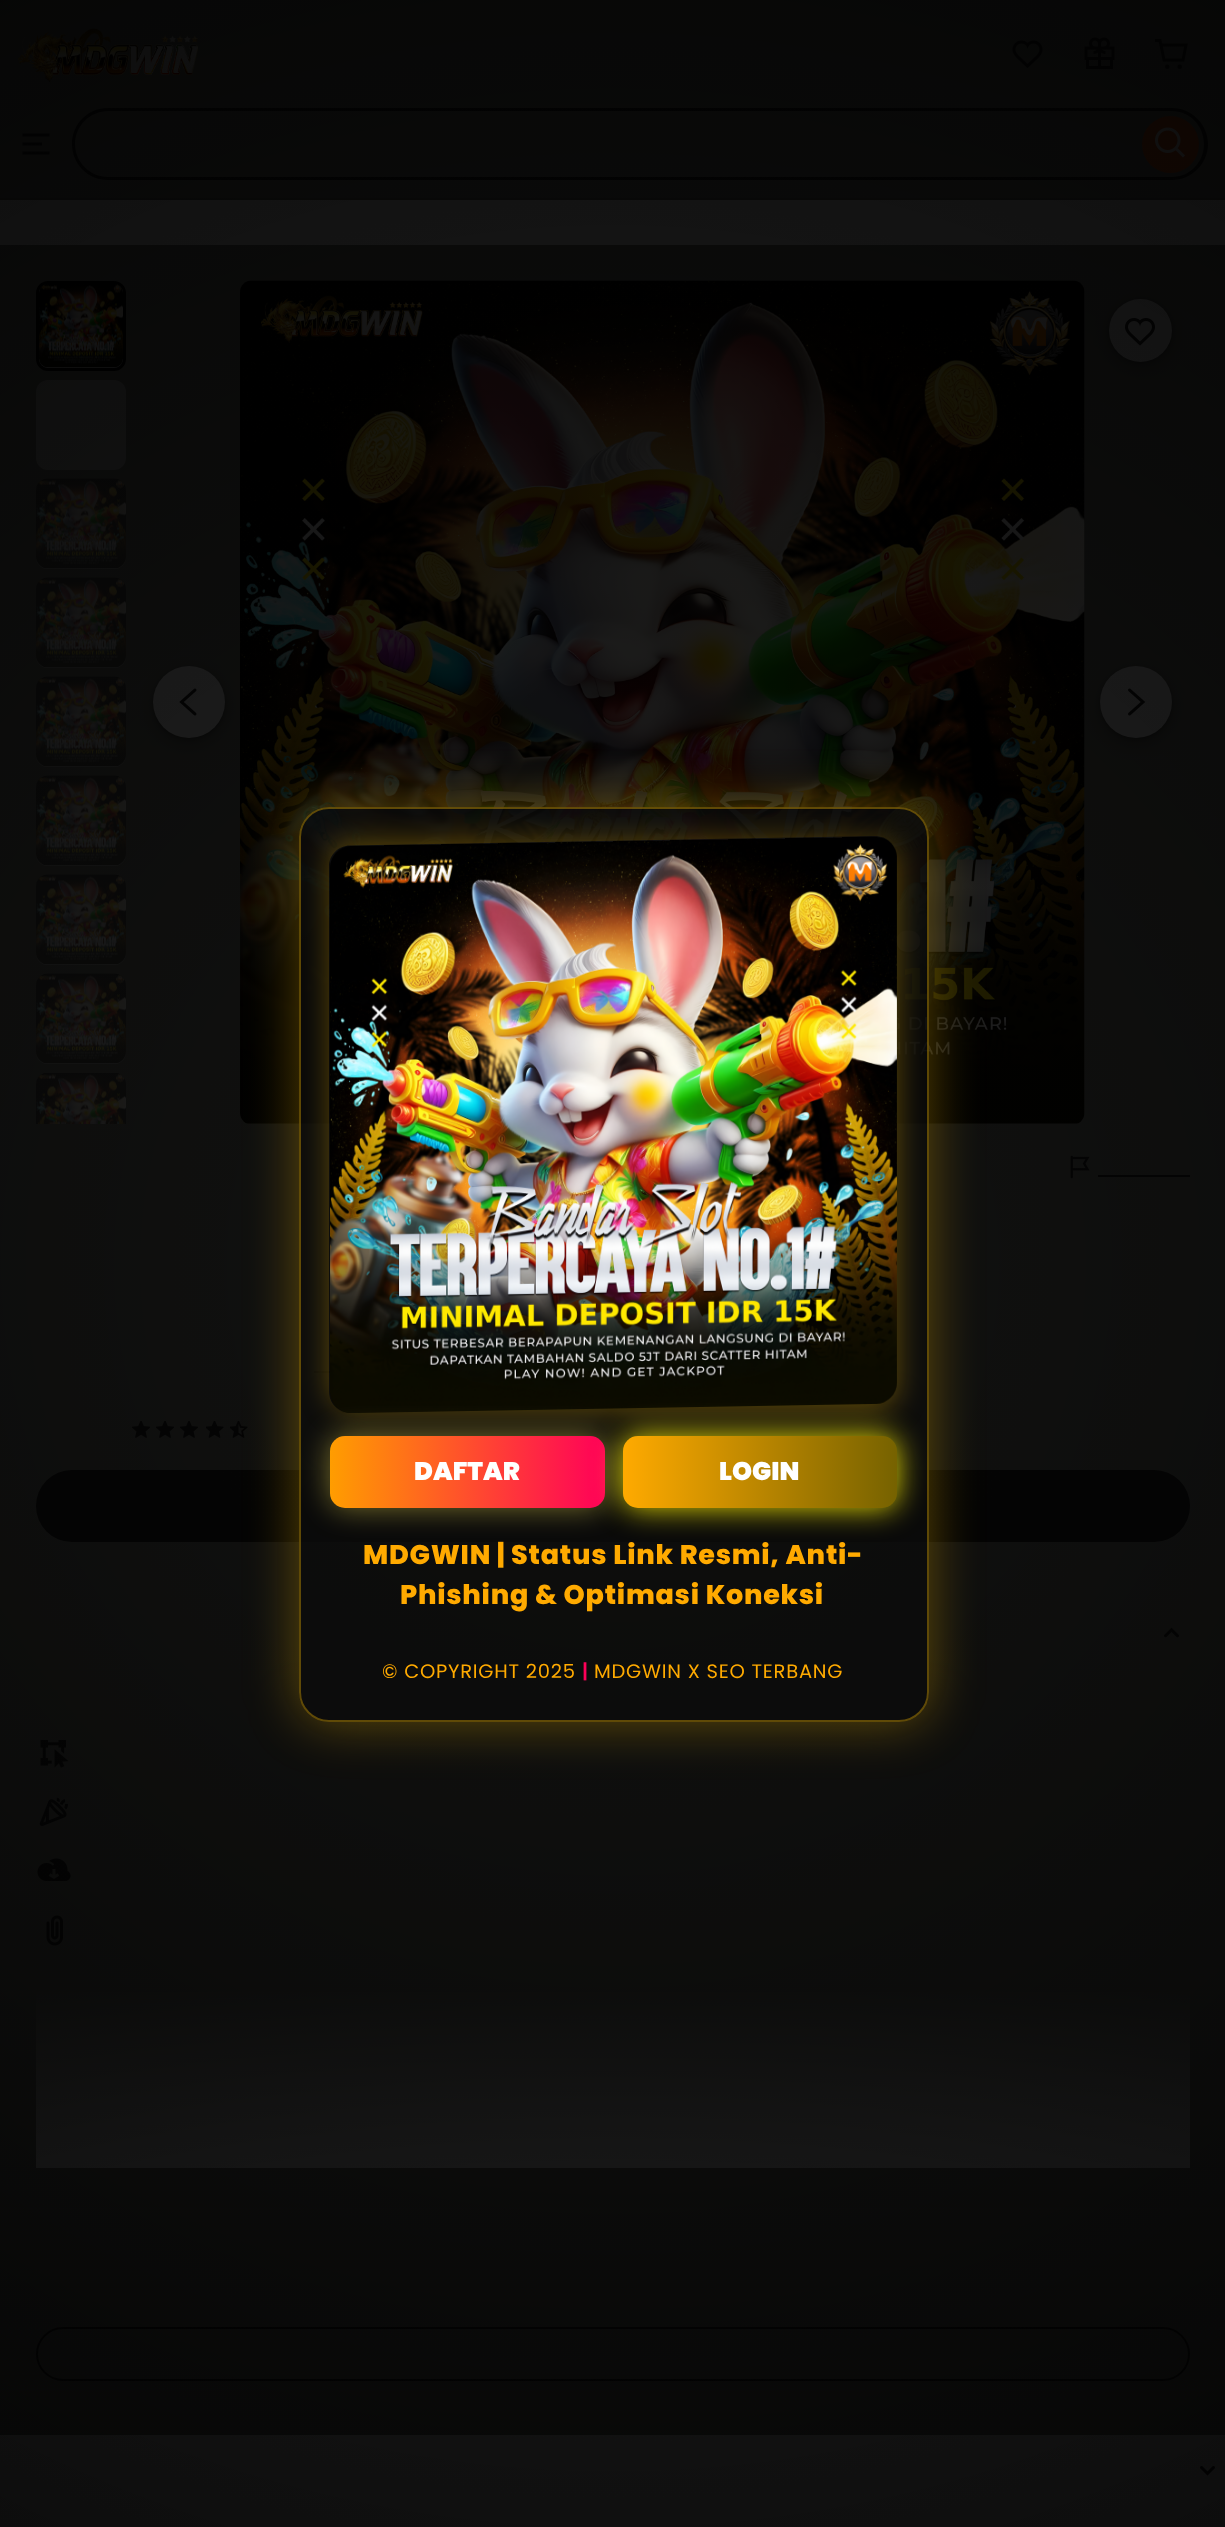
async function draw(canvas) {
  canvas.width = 1225;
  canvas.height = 2527;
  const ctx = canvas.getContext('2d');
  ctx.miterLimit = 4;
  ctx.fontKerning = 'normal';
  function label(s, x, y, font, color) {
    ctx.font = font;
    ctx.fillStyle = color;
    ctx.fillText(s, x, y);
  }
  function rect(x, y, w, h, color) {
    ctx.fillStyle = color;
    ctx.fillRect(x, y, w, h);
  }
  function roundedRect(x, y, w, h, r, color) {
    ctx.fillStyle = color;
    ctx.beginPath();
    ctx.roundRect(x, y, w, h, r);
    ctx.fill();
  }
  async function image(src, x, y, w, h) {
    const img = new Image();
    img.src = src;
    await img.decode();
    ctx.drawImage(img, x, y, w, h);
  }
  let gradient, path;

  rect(0, 0, 1225, 2527, '#fff');
  rect(0, 0, 1225, 198, '#7d7f77');
  rect(0, 198, 1225, 2, '#696b64');
  await image('assets/img1.png', 18, 28, 180, 55);
  await image('assets/img2.png', 1012, 40, 31, 28);
  await image('assets/img3.png', 1084, 37, 31, 32);
  await image('assets/img4.png', 1155, 39, 33, 30);
  await image('assets/img5.png', 22, 133, 28, 22);
  ctx.fillStyle = '#222';
  path = new Path2D('M108 108H1134V180H108C88 180 72 164 72 144C72 124 88 108 108 108ZM108 111H1134V177H108C90 177 75 162 75 144C75 126 90 111 108 111Z');
  ctx.fill(path, 'evenodd');
  path = new Path2D('M1134 108H1172C1191 108 1208 124 1208 144C1208 164 1191 180 1172 180H1134ZM1134 111H1172C1190 111 1204 126 1204 144C1204 162 1190 177 1172 177H1134Z');
  ctx.fill(path, 'evenodd');
  ctx.fillStyle = '#f1641e';
  ctx.beginPath();
  ctx.arc(1170.5, 144.5, 28.5, 0, 2 * Math.PI);
  ctx.fill();
  await image('assets/img6.png', 1155, 127, 30, 31);
  rect(0, 245, 1225, 2190, '#7d7f77');
  ctx.fillStyle = '#eaeaea';
  ctx.beginPath();
  ctx.roundRect(37.5, 282.5, 87, 87, 10.5);
  ctx.fill();
  ctx.strokeStyle = '#000';
  ctx.lineWidth = 3;
  ctx.stroke();
  await image('assets/img7.png', 39, 284, 84, 84);
  roundedRect(36, 380, 90, 90, 12, '#bebfbc');
  roundedRect(36, 479, 90, 90, 12, '#bebfbc');
  await image('assets/img8.png', 36, 478, 90, 91);
  roundedRect(36, 578, 90, 90, 12, '#bebfbc');
  await image('assets/img8.png', 36, 577, 90, 91);
  roundedRect(36, 677, 90, 90, 12, '#bebfbc');
  await image('assets/img8.png', 36, 676, 90, 91);
  roundedRect(36, 776, 90, 90, 12, '#bebfbc');
  await image('assets/img8.png', 36, 775, 90, 91);
  roundedRect(36, 875, 90, 90, 12, '#bebfbc');
  await image('assets/img8.png', 36, 874, 90, 91);
  roundedRect(36, 974, 90, 90, 12, '#bebfbc');
  await image('assets/img8.png', 36, 973, 90, 91);
  ctx.beginPath();
  ctx.roundRect(36, 1073, 90, 51, [12, 12, 0, 0]);
  ctx.fill();
  await image('assets/img9.png', 36, 1073, 90, 51);
  await image('assets/img11.png', 240, 280, 845, 844);
  ctx.fillStyle = '#00000026';
  ctx.filter = 'blur(6px)';
  ctx.beginPath();
  ctx.roundRect(149, 668, 81, 81, 40.5);
  ctx.fill();
  ctx.filter = 'none';
  ctx.fillStyle = '#0000004d';
  ctx.filter = 'blur(2px)';
  ctx.beginPath();
  ctx.roundRect(153, 668, 72, 72, 36);
  ctx.fill();
  ctx.filter = 'none';
  ctx.fillStyle = '#fff';
  ctx.beginPath();
  ctx.arc(189, 702, 36, 0, 2 * Math.PI);
  ctx.fill();
  await image('assets/img10.png', 179, 688, 18, 28);
  ctx.fillStyle = '#00000026';
  ctx.filter = 'blur(6px)';
  ctx.beginPath();
  ctx.roundRect(1095, 668, 81, 81, 40.5);
  ctx.fill();
  ctx.filter = 'none';
  ctx.fillStyle = '#0000004d';
  ctx.filter = 'blur(2px)';
  ctx.beginPath();
  ctx.roundRect(1100, 668, 72, 72, 36);
  ctx.fill();
  ctx.filter = 'none';
  ctx.fillStyle = '#fff';
  ctx.beginPath();
  ctx.arc(1136, 702, 36, 0, 2 * Math.PI);
  ctx.fill();
  await image('assets/img12.png', 1128, 688, 18, 28);
  ctx.fillStyle = '#00000026';
  ctx.filter = 'blur(6px)';
  ctx.beginPath();
  ctx.roundRect(1104, 300, 72, 72, 36);
  ctx.fill();
  ctx.filter = 'none';
  ctx.fillStyle = '#0000004d';
  ctx.filter = 'blur(2.5px)';
  ctx.beginPath();
  ctx.roundRect(1109, 300, 63, 63, 31.5);
  ctx.fill();
  ctx.filter = 'none';
  ctx.fillStyle = '#fff';
  ctx.beginPath();
  ctx.arc(1140.5, 330.5, 31.5, 0, 2 * Math.PI);
  ctx.fill();
  await image('assets/img13.png', 1125, 318, 30, 28);
  await image('assets/img14.png', 1070, 1155, 20, 24);
  rect(1098, 1175, 92, 2, '#222');
  rect(314, 1371, 16, 2, '#222');
  await image('assets/img15.png', 132, 1421, 18, 17);
  await image('assets/img15.png', 156, 1421, 18, 17);
  await image('assets/img15.png', 180, 1421, 18, 17);
  await image('assets/img16.png', 206, 1421, 18, 17);
  await image('assets/img17.png', 230, 1421, 18, 17);
  roundedRect(36, 1470, 1154, 72, 36, '#222');
  await image('assets/img18.png', 1164, 1627, 15, 11);
  await image('assets/img19.png', 40, 1740, 29, 28);
  await image('assets/img20.png', 39, 1797, 29, 29);
  await image('assets/img21.png', 37, 1858, 34, 23);
  await image('assets/img22.png', 46, 1915, 17, 31);
  gradient = ctx.createLinearGradient(613, 1988, 613, 2168);
  gradient.addColorStop(0, '#ffffff00');
  gradient.addColorStop(1, '#fff');
  ctx.fillStyle = gradient;
  ctx.fillRect(36, 1992, 1154, 176);
  ctx.beginPath();
  ctx.roundRect(37, 2328, 1152, 52, 26);
  ctx.strokeStyle = '#222';
  ctx.lineWidth = 2;
  ctx.stroke();
  await image('assets/img23.png', 1200, 2466, 15, 10);
  gradient = ctx.createRadialGradient(613, 1264, 0, 613, 1264, 1404);
  gradient.addColorStop(0, '#000000d9');
  gradient.addColorStop(1, '#000000f2');
  ctx.fillStyle = gradient;
  ctx.fillRect(0, 0, 1225, 2527);
  ctx.save();
  path = new Path2D('M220 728H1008V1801H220ZM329 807H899C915.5 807 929 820.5 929 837V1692C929 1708.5 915.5 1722 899 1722H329C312.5 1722 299 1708.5 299 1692V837C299 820.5 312.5 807 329 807Z');
  ctx.clip(path, 'evenodd');
  ctx.fillStyle = '#ffbf0059';
  ctx.filter = 'blur(26px)';
  ctx.beginPath();
  ctx.roundRect(299, 807, 630, 915, 30);
  ctx.fill();
  ctx.filter = 'none';
  ctx.restore();
  roundedRect(299, 807, 630, 915, 30, '#0c0c0cbf');
  ctx.beginPath();
  ctx.roundRect(300, 808, 628, 913, 29);
  ctx.strokeStyle = '#ffbf0059';
  ctx.stroke();
  ctx.save();
  path = new Path2D('M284 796H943V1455H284ZM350 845.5L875 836C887 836 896 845 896 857V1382C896 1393.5 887 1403 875 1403L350 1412.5C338.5 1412.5 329 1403.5 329 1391.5V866.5C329 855 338.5 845.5 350 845.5Z');
  ctx.clip(path, 'evenodd');
  ctx.fillStyle = '#ffbf0059';
  ctx.filter = 'blur(15px)';
  ctx.beginPath();
  ctx.roundRect(330, 842, 567, 567, 21);
  ctx.fill();
  ctx.filter = 'none';
  ctx.restore();
  await image('assets/img24.png', 330, 837, 567, 576);
  ctx.fillStyle = '#ffe85273';
  ctx.filter = 'blur(15px)';
  ctx.beginPath();
  ctx.roundRect(330, 1436, 275, 72, 15);
  ctx.fill();
  ctx.filter = 'none';
  gradient = ctx.createLinearGradient(330, 1472, 605, 1472);
  gradient.addColorStop(0, '#ff9d00');
  gradient.addColorStop(1, '#ff0059');
  ctx.fillStyle = gradient;
  ctx.beginPath();
  ctx.roundRect(330, 1436, 275, 72, 15);
  ctx.fill();
  label('DAFTAR', 414, 1480, '900 25.5px Poppins', '#fff');
  ctx.fillStyle = '#fff203e3';
  ctx.filter = 'blur(15px)';
  ctx.beginPath();
  ctx.roundRect(623, 1436, 274, 72, 15);
  ctx.fill();
  ctx.filter = 'none';
  gradient = ctx.createLinearGradient(623, 1472, 897, 1472);
  gradient.addColorStop(0, '#fa0');
  gradient.addColorStop(1, '#766200');
  ctx.fillStyle = gradient;
  ctx.beginPath();
  ctx.roundRect(623, 1436, 274, 72, 15);
  ctx.fill();
  label('LOGIN', 719, 1480, '900 25.5px Poppins', '#fff');
  ctx.letterSpacing = '0.75px';
  label('MDGWIN | Status Link Resmi, Anti-', 363, 1564, '800 27px Poppins', '#fa0');
  label('Phishing & Optimasi Koneksi', 400, 1604, '800 27px Poppins', '#fa0');
  label('© COPYRIGHT 2025', 382, 1678, '19.5px Poppins', '#fa0');
  label('|', 582, 1678, '600 19.5px Poppins', '#ff0059');
  label('MDGWIN X SEO TERBANG', 594, 1678, '19.5px Poppins', '#fa0');
}

draw(document.querySelector('canvas'));
